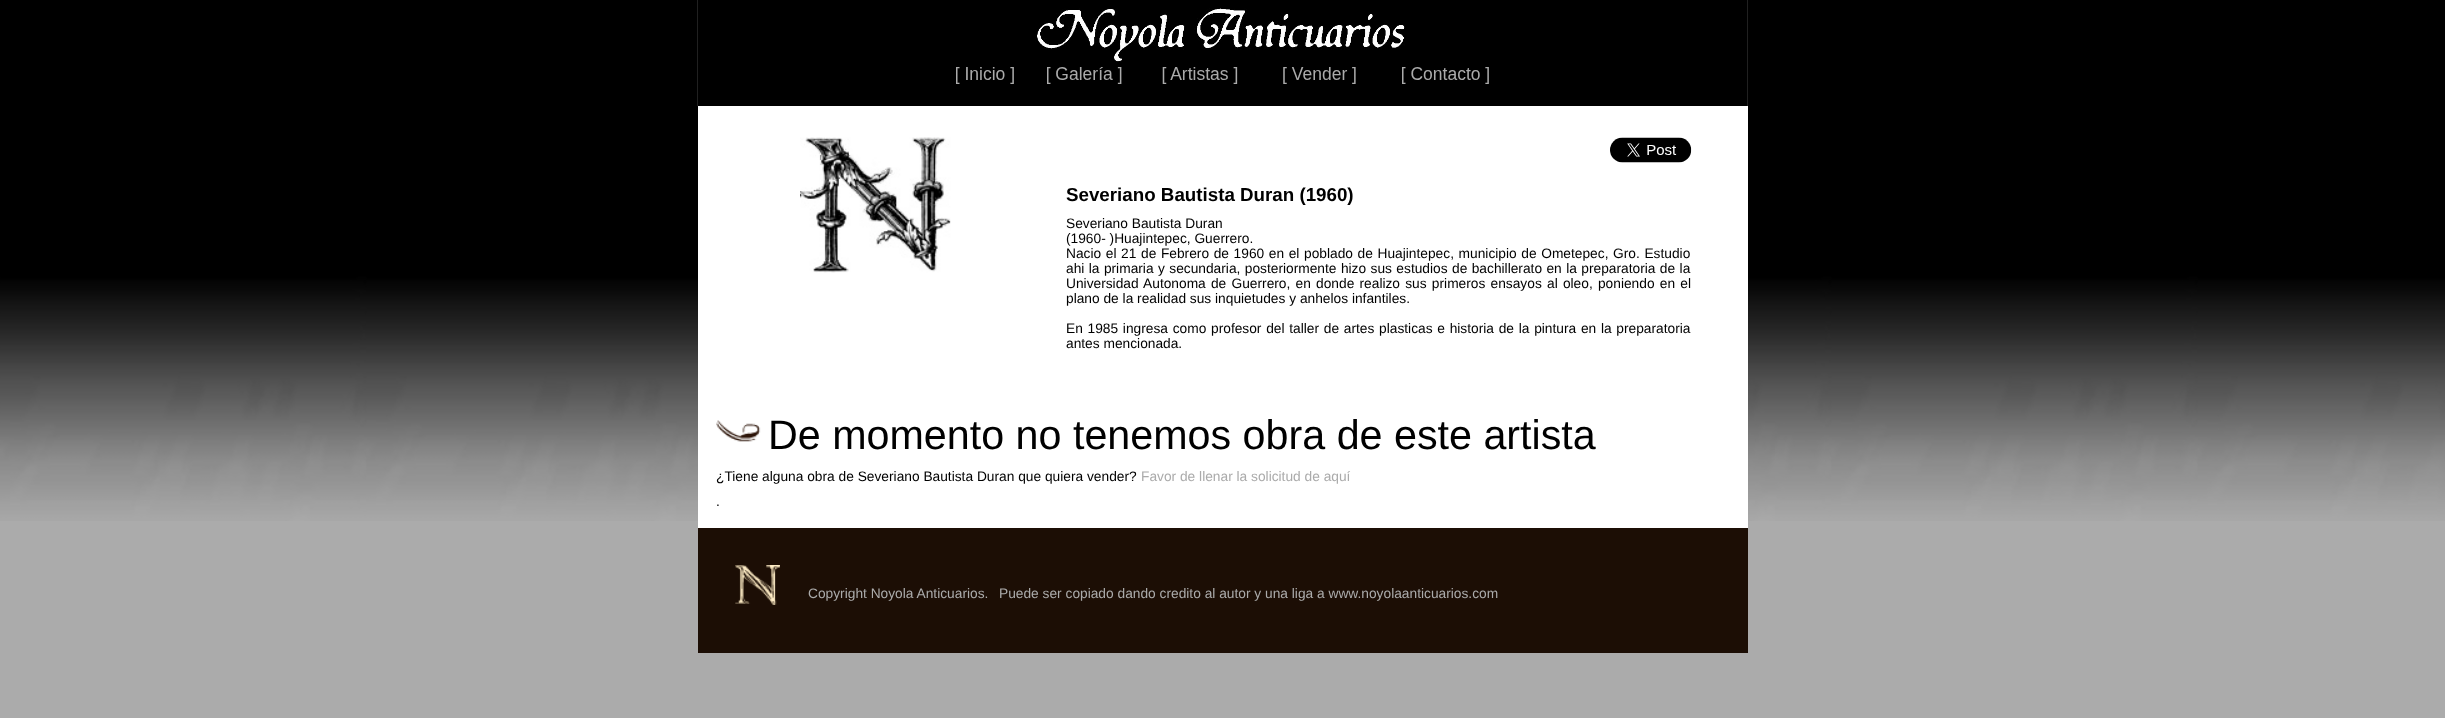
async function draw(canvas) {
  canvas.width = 2445;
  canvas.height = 718;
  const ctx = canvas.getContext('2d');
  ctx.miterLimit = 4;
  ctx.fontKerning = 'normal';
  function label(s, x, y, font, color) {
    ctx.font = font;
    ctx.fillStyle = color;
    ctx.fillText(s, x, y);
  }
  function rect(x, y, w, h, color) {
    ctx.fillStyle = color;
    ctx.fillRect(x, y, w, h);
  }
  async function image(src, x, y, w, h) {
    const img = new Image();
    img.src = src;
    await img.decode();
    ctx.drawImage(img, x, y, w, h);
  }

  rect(0, 0, 2445, 718, '#ababab');
  await image('assets/img1.png', 0, 0, 2445, 521);
  await image('assets/img2.png', 697, 0, 1051, 107);
  rect(698, 106, 1050, 422, '#fff');
  await image('assets/img3.png', 800, 137, 151, 136);
  await image('assets/img4.png', 1610, 137, 82, 26);
  label('Severiano Bautista Duran (1960)', 1066, 201, 'bold 18.75px Liberation Sans', '#000');
  label('Severiano Bautista Duran', 1066, 228, '13.75px Liberation Sans', '#000');
  label('(1960- )Huajintepec, Guerrero.', 1066, 243, '13.75px Liberation Sans', '#000');
  ctx.wordSpacing = '0.8px';
  label('Nacio el 21 de Febrero de 1960 en el poblado de Huajintepec, municipio de Ometepec, Gro. Estudio', 1066, 258, '13.75px Liberation Sans', '#000');
  ctx.wordSpacing = '0.6px';
  label('ahi la primaria y secundaria, posteriormente hizo sus estudios de bachillerato en la preparatoria de la', 1066, 273, '13.75px Liberation Sans', '#000');
  ctx.wordSpacing = '1.4px';
  label('Universidad Autonoma de Guerrero, en donde realizo sus primeros ensayos al oleo, poniendo en el', 1066, 288, '13.75px Liberation Sans', '#000');
  ctx.wordSpacing = '0px';
  label('plano de la realidad sus inquietudes y anhelos infantiles.', 1066, 303, '13.75px Liberation Sans', '#000');
  ctx.wordSpacing = '0.9px';
  label('En 1985 ingresa como profesor del taller de artes plasticas e historia de la pintura en la preparatoria', 1066, 333, '13.75px Liberation Sans', '#000');
  ctx.wordSpacing = '0px';
  label('antes mencionada.', 1066, 348, '13.75px Liberation Sans', '#000');
  await image('assets/img5.png', 716, 420, 45, 22);
  label('De momento no tenemos obra de este artista', 768, 449, '41.25px Liberation Sans', '#000');
  label('¿Tiene alguna obra de Severiano Bautista Duran que quiera vender?', 716, 481, '13.75px Liberation Sans', '#000');
  label('Favor de llenar la solicitud de aquí', 1141, 481, '13.75px Liberation Sans', '#ababab');
  label('.', 716, 506, '13.75px Liberation Sans', '#000');
  rect(698, 528, 1050, 125, '#1c0e05');
  await image('assets/img6.png', 735, 565, 45, 40);
  label('Copyright Noyola Anticuarios.', 808, 598, '13.75px Liberation Sans', '#ababab');
  label('Puede ser copiado dando credito al autor y una liga a www.noyolaanticuarios.com', 999, 598, '13.75px Liberation Sans', '#ababab');
}

draw(document.querySelector('canvas'));
